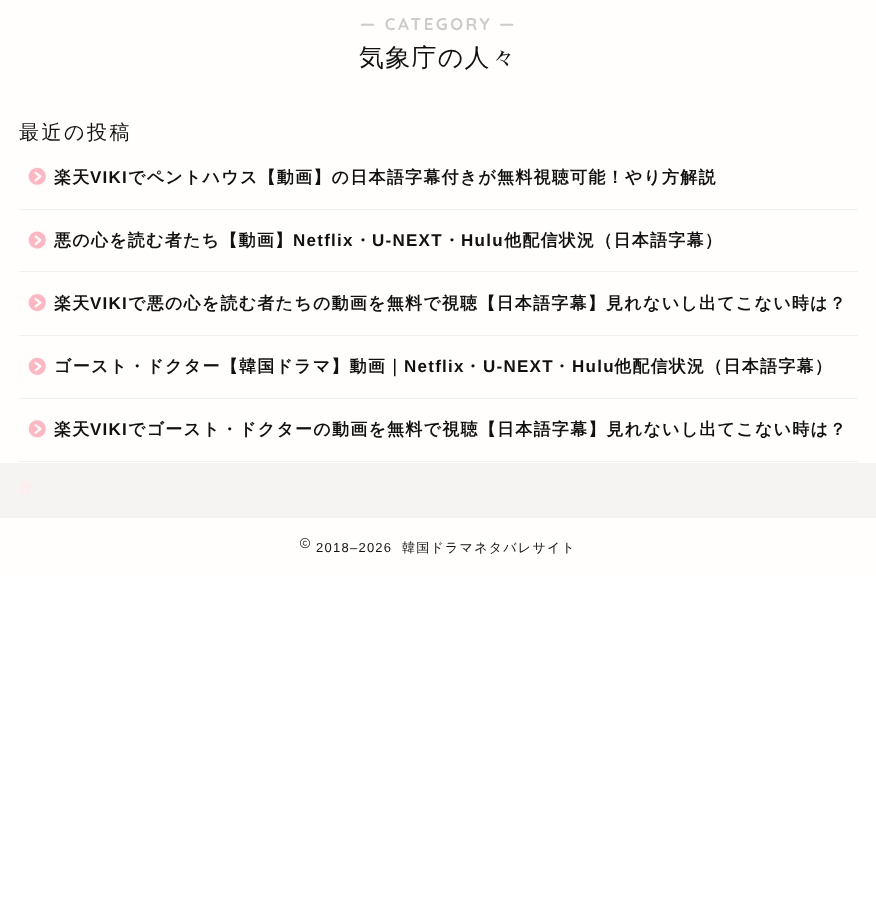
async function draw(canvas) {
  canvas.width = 876;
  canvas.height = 910;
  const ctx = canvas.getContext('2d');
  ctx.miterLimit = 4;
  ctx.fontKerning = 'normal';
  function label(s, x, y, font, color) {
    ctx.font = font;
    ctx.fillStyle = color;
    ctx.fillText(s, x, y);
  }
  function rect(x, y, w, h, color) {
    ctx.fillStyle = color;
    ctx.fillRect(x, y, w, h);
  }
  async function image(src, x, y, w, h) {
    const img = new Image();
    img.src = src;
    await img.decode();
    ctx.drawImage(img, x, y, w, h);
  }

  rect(0, 0, 876, 910, '#fff');
  rect(0, 0, 876, 575, '#fffefc');
  ctx.letterSpacing = '2.5px';
  label('― CATEGORY ―', 360, 30, 'bold 17px Quicksand', '#ccc');
  ctx.letterSpacing = '1.25px';
  label('気象庁の人々', 359, 66, '500 25px WenQuanYi Zen Hei', '#111');
  ctx.letterSpacing = '2.5px';
  label('最近の投稿', 19, 139, '500 20px WenQuanYi Zen Hei', '#111');
  rect(19, 209, 839, 1, '#f2f1ef');
  await image('assets/img1.png', 28, 167, 18, 18);
  ctx.letterSpacing = '1.25px';
  label('楽天', 54, 183, 'bold 17px WenQuanYi Zen Hei', '#111');
  label('VIKI', 90, 183, 'bold 17px Liberation Sans', '#111');
  label('でペントハウス【動画】の日本語字幕付きが無料視聴可能！やり方解説', 128, 183, 'bold 17px WenQuanYi Zen Hei', '#111');
  rect(19, 271, 839, 1, '#f2f1ef');
  await image('assets/img2.png', 28, 231, 18, 18);
  label('悪の心を読む者たち【動画】', 54, 246, 'bold 17px WenQuanYi Zen Hei', '#111');
  label('Netflix', 293, 246, 'bold 17px Liberation Sans', '#111');
  label('・', 354, 246, 'bold 17px WenQuanYi Zen Hei', '#111');
  label('U-NEXT', 372, 246, 'bold 17px Liberation Sans', '#111');
  label('・', 443, 246, 'bold 17px WenQuanYi Zen Hei', '#111');
  label('Hulu', 461, 246, 'bold 17px Liberation Sans', '#111');
  label('他配信状況（日本語字幕）', 504, 246, 'bold 17px WenQuanYi Zen Hei', '#111');
  rect(19, 335, 839, 1, '#f2f1ef');
  await image('assets/img3.png', 28, 294, 18, 17);
  label('楽天', 54, 309, 'bold 17px WenQuanYi Zen Hei', '#111');
  label('VIKI', 90, 309, 'bold 17px Liberation Sans', '#111');
  label('で悪の心を読む者たちの動画を無料で視聴【日本語字幕】見れないし出てこない時は？', 128, 309, 'bold 17px WenQuanYi Zen Hei', '#111');
  rect(19, 398, 839, 1, '#f2f1ef');
  await image('assets/img1.png', 28, 357, 18, 18);
  label('ゴースト・ドクター【韓国ドラマ】動画｜', 54, 372, 'bold 17px WenQuanYi Zen Hei', '#111');
  label('Netflix', 404, 372, 'bold 17px Liberation Sans', '#111');
  label('・', 464, 372, 'bold 17px WenQuanYi Zen Hei', '#111');
  label('U-NEXT', 483, 372, 'bold 17px Liberation Sans', '#111');
  label('・', 553, 372, 'bold 17px WenQuanYi Zen Hei', '#111');
  label('Hulu', 572, 372, 'bold 17px Liberation Sans', '#111');
  label('他配信状況（日本語字幕）', 614, 372, 'bold 17px WenQuanYi Zen Hei', '#111');
  rect(19, 461, 839, 1, '#f2f1ef');
  await image('assets/img4.png', 28, 420, 18, 18);
  label('楽天', 54, 435, 'bold 17px WenQuanYi Zen Hei', '#111');
  label('VIKI', 90, 435, 'bold 17px Liberation Sans', '#111');
  label('でゴースト・ドクターの動画を無料で視聴【日本語字幕】見れないし出てこない時は？', 128, 435, 'bold 17px WenQuanYi Zen Hei', '#111');
  rect(0, 463, 876, 55, '#f5f4f2');
  await image('assets/img5.png', 19, 481, 14, 13);
  await image('assets/img6.png', 300, 538, 10, 11);
  label('2018–2026', 316, 552, '13px Liberation Sans', '#111');
  label('韓国ドラマネタバレサイト', 402, 552, '500 13px WenQuanYi Zen Hei', '#111');
}

draw(document.querySelector('canvas'));
